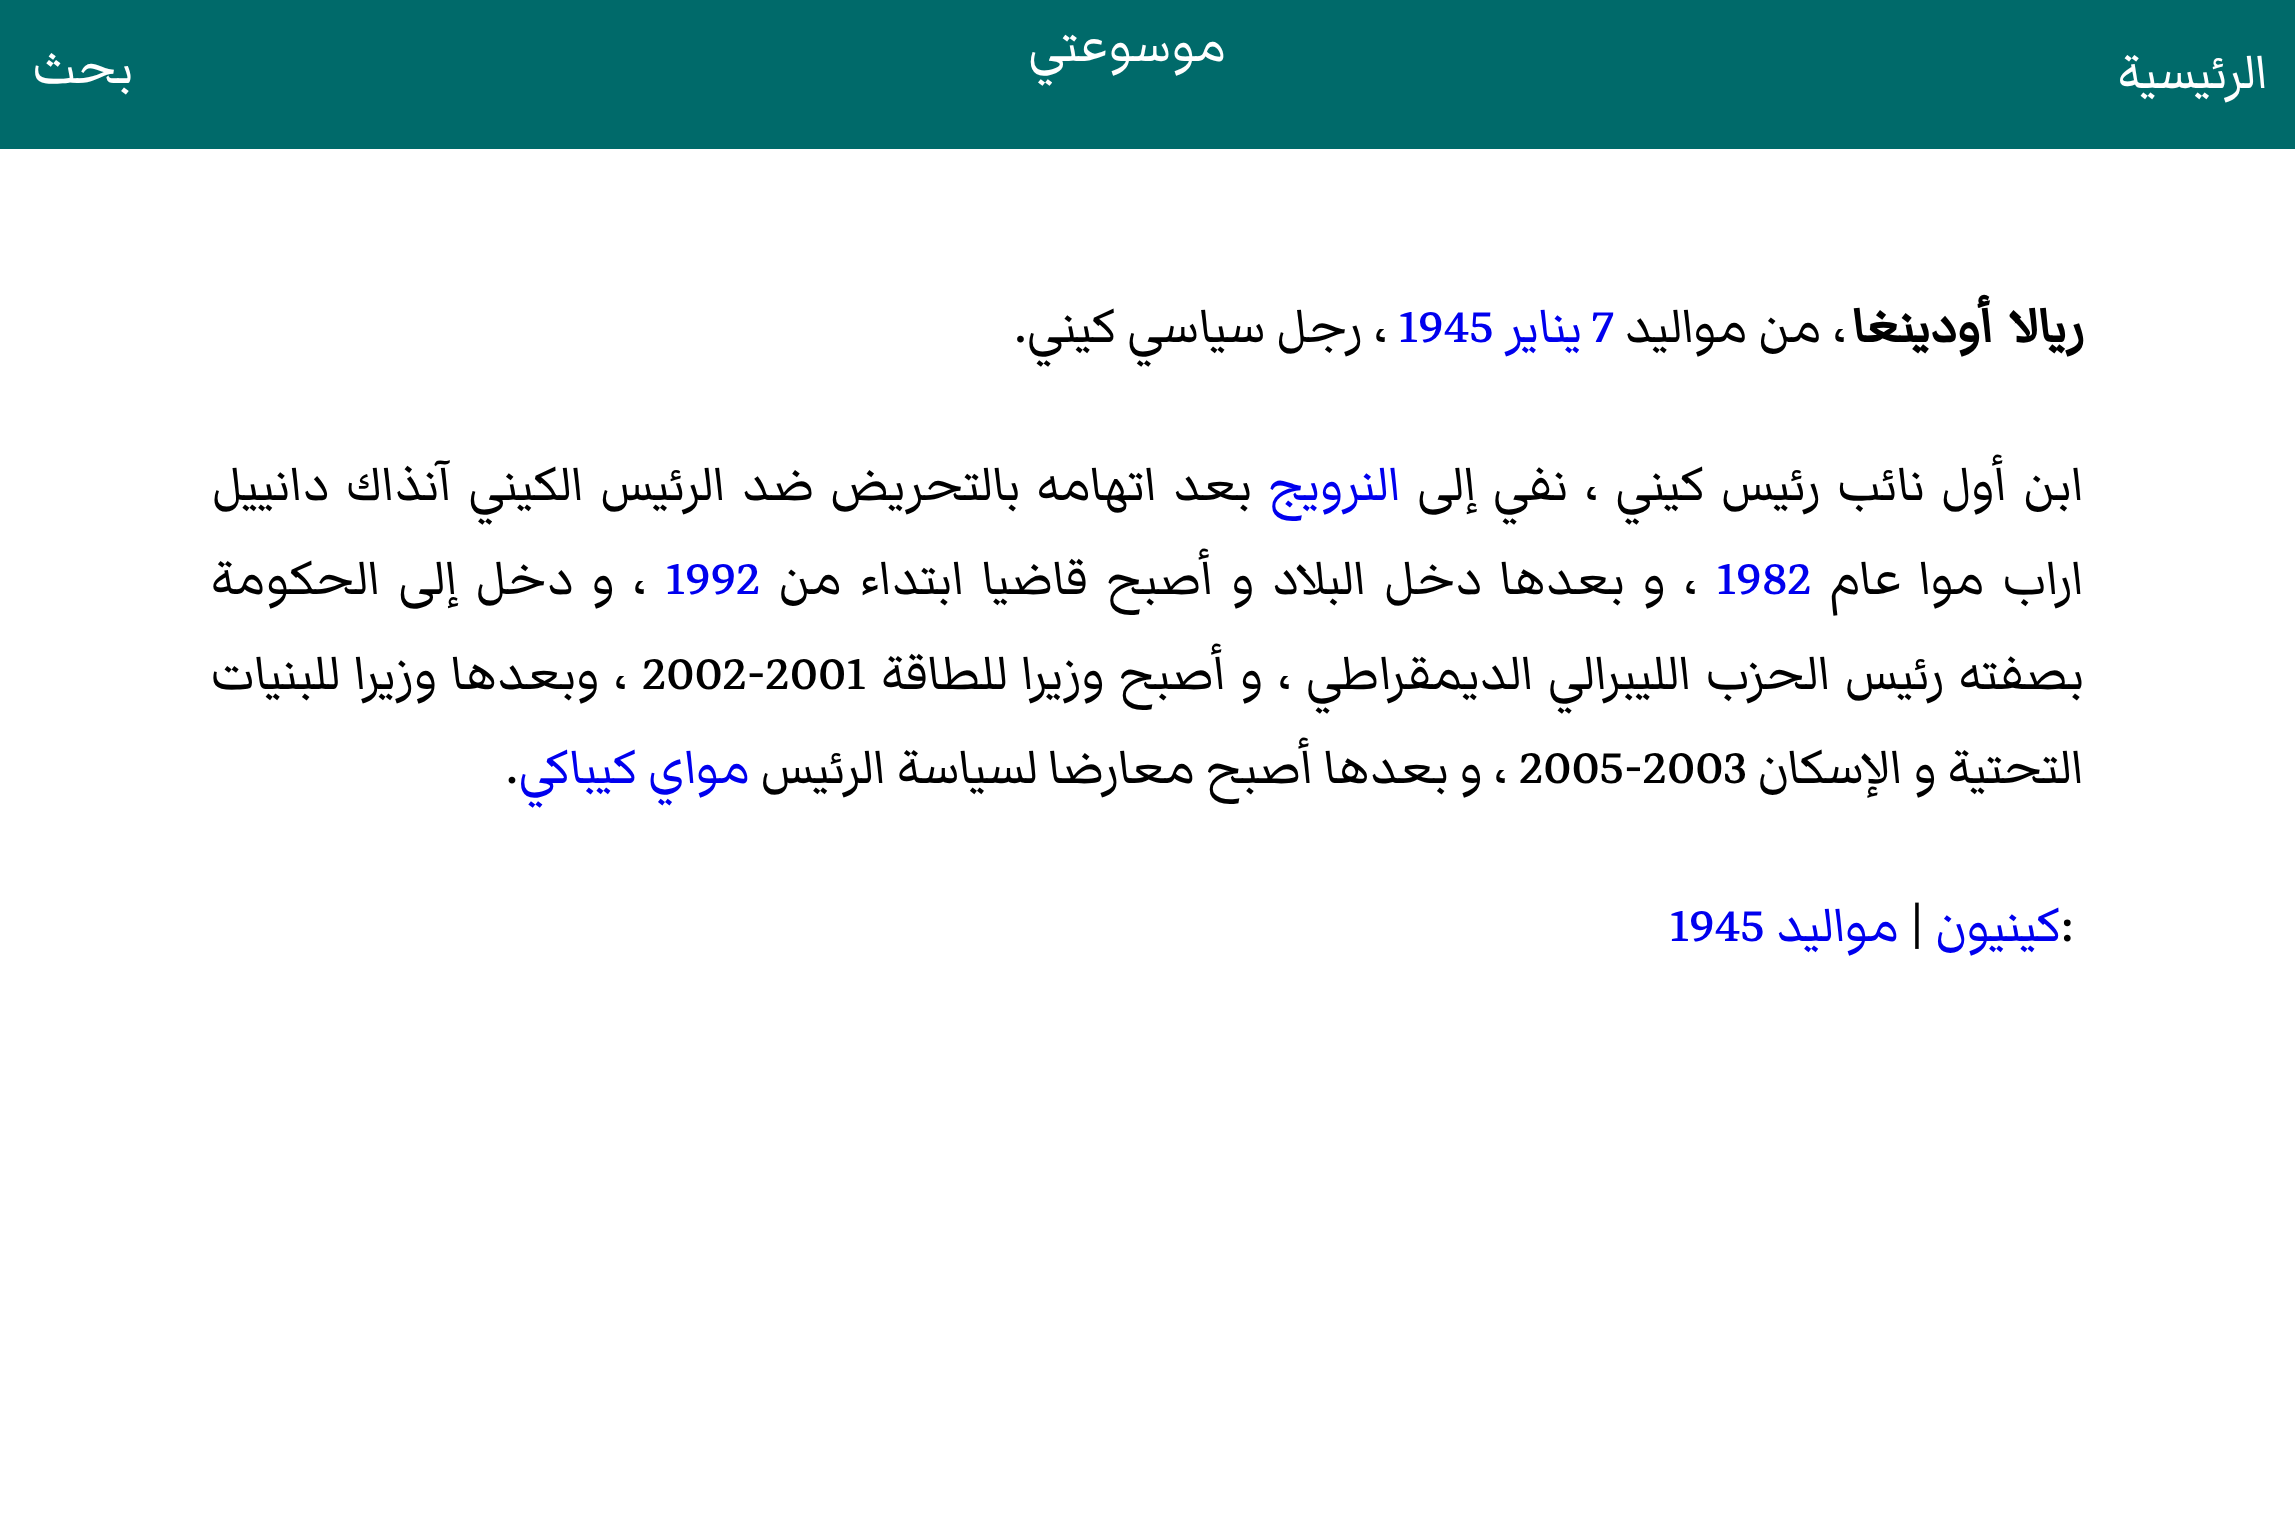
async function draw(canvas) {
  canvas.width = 2295;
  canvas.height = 1539;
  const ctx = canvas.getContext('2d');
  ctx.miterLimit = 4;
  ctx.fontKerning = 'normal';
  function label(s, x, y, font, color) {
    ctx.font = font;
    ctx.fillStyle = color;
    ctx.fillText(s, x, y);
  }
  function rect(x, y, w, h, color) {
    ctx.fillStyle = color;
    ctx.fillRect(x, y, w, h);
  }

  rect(0, 0, 2295, 1539, '#fff');
  rect(0, 0, 2295, 149, '#006a6a');
  ctx.direction = 'rtl';
  label('الرئيسية', 2268, 88, '63px Markazi Text', '#fff');
  label('موسوعتي', 1226, 61, '63px Markazi Text', '#fff');
  label('بحث', 133, 83, '63px Markazi Text', '#fff');
  label('ريالا أودينغا', 2084, 342, 'bold 63px Markazi Text', '#000');
  label('، من مواليد', 1847, 342, '63px Markazi Text', '#000');
  ctx.direction = 'ltr';
  label('7', 1592, 342, '63px Markazi Text', '#00e');
  ctx.direction = 'rtl';
  label('يناير', 1582, 342, '63px Markazi Text', '#00e');
  ctx.direction = 'ltr';
  label('1945', 1398, 342, '63px Markazi Text', '#00e');
  ctx.direction = 'rtl';
  label('، رجل سياسي كيني.', 1388, 342, '63px Markazi Text', '#000');
  ctx.wordSpacing = '5.5px';
  label('ابن أول نائب رئيس كيني ، نفي إلى', 2084, 500, '63px Markazi Text', '#000');
  ctx.wordSpacing = '0px';
  label('النرويج', 1401, 500, '63px Markazi Text', '#00e');
  ctx.wordSpacing = '5.5px';
  label('بعد اتهامه بالتحريض ضد الرئيس الكيني آنذاك دانييل', 1252, 500, '63px Markazi Text', '#000');
  ctx.wordSpacing = '7px';
  label('اراب موا عام', 2084, 594, '63px Markazi Text', '#000');
  ctx.wordSpacing = '0px';
  ctx.direction = 'ltr';
  label('1982', 1716, 594, '63px Markazi Text', '#00e');
  ctx.wordSpacing = '7px';
  ctx.direction = 'rtl';
  label('، و بعدها دخل البلاد و أصبح قاضيا ابتداء من', 1698, 594, '63px Markazi Text', '#000');
  ctx.wordSpacing = '0px';
  ctx.direction = 'ltr';
  label('1992', 665, 594, '63px Markazi Text', '#00e');
  ctx.wordSpacing = '7px';
  ctx.direction = 'rtl';
  label('، و دخل إلى الحكومة', 647, 594, '63px Markazi Text', '#000');
  ctx.wordSpacing = '3.25px';
  label('بصفته رئيس الحزب الليبرالي الديمقراطي ، و أصبح وزيرا للطاقة', 2084, 689, '63px Markazi Text', '#000');
  ctx.wordSpacing = '0px';
  ctx.direction = 'ltr';
  label('2002-2001', 642, 689, '63px Markazi Text', '#000');
  ctx.wordSpacing = '3.25px';
  ctx.direction = 'rtl';
  label('، وبعدها وزيرا للبنيات', 628, 689, '63px Markazi Text', '#000');
  ctx.wordSpacing = '0px';
  label('التحتية و الإسكان', 2084, 783, '63px Markazi Text', '#000');
  ctx.direction = 'ltr';
  label('2005-2003', 1519, 783, '63px Markazi Text', '#000');
  ctx.direction = 'rtl';
  label('، و بعدها أصبح معارضا لسياسة الرئيس', 1508, 783, '63px Markazi Text', '#000');
  label('مواي كيباكي', 750, 783, '63px Markazi Text', '#00e');
  ctx.direction = 'ltr';
  label('.', 506, 783, '63px Markazi Text', '#000');
  label(':', 2061, 941, '63px Markazi Text', '#000');
  ctx.direction = 'rtl';
  label('كينيون', 2061, 941, '63px Markazi Text', '#00e');
  ctx.direction = 'ltr';
  label('|', 1909, 941, '63px Markazi Text', '#000');
  ctx.direction = 'rtl';
  label('مواليد', 1899, 941, '63px Markazi Text', '#00e');
  ctx.direction = 'ltr';
  label('1945', 1669, 941, '63px Markazi Text', '#00e');
}

draw(document.querySelector('canvas'));
